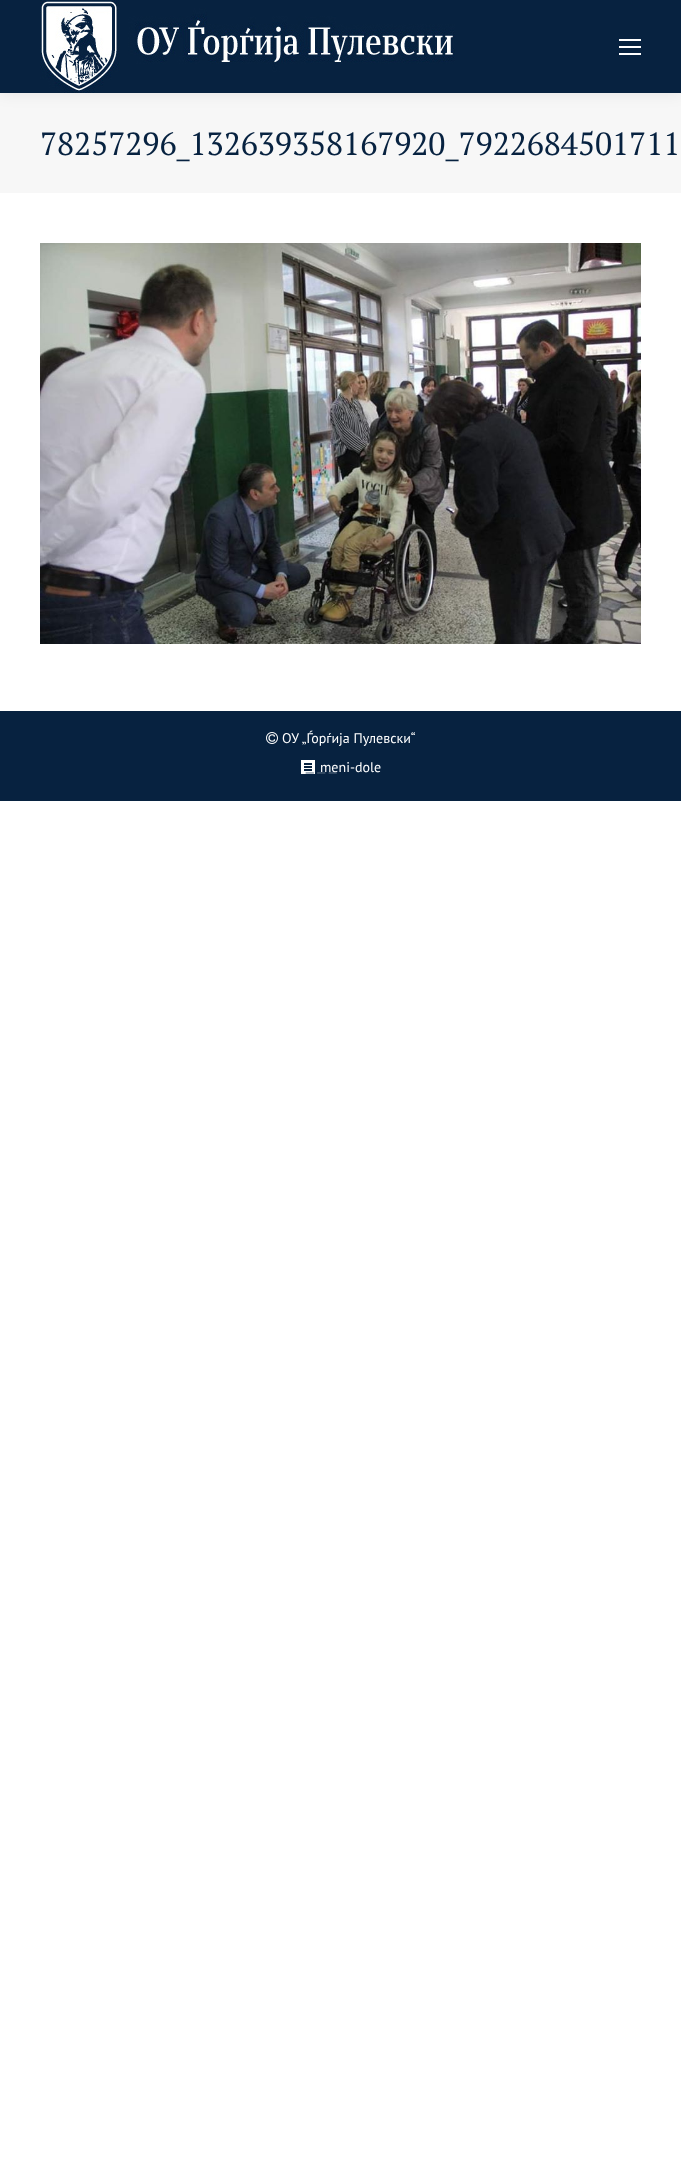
async function draw(canvas) {
  canvas.width = 681;
  canvas.height = 2177;
  const ctx = canvas.getContext('2d');
  ctx.miterLimit = 4;
  ctx.fontKerning = 'normal';
  function label(s, x, y, font, color) {
    ctx.font = font;
    ctx.fillStyle = color;
    ctx.fillText(s, x, y);
  }
  function rect(x, y, w, h, color) {
    ctx.fillStyle = color;
    ctx.fillRect(x, y, w, h);
  }
  async function image(src, x, y, w, h) {
    const img = new Image();
    img.src = src;
    await img.decode();
    ctx.drawImage(img, x, y, w, h);
  }

  rect(0, 0, 681, 2177, '#fff');
  rect(0, 93, 681, 100, '#f7f7f7');
  ctx.fillStyle = '#00000012';
  ctx.filter = 'blur(7.5px)';
  ctx.beginPath();
  ctx.rect(-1, -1, 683, 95);
  ctx.fill();
  ctx.filter = 'none';
  rect(0, 0, 681, 93, '#072240');
  await image('assets/img1.png', 40, 0, 415, 93);
  rect(619, 46, 22, 2, '#fff');
  rect(619, 39, 22, 2, '#fff');
  rect(619, 53, 22, 2, '#fff');
  label('78257296_132639358167920_7922684501711', 40, 155, '32px PT Serif', '#072240');
  await image('assets/img2.png', 40, 243, 601, 401);
  rect(0, 711, 681, 90, '#072240');
  await image('assets/img3.png', 266, 732, 12, 12);
  label('ОУ „Ѓорѓија Пулевски“', 282, 743, '14px PT Sans', '#fff');
  await image('assets/img4.png', 301, 760, 14, 14);
  label('meni-dole', 320, 772, '14px PT Sans', '#fff');
  label('———', 304, 777, '14px PT Sans', '#5a6c80');
}

draw(document.querySelector('canvas'));
